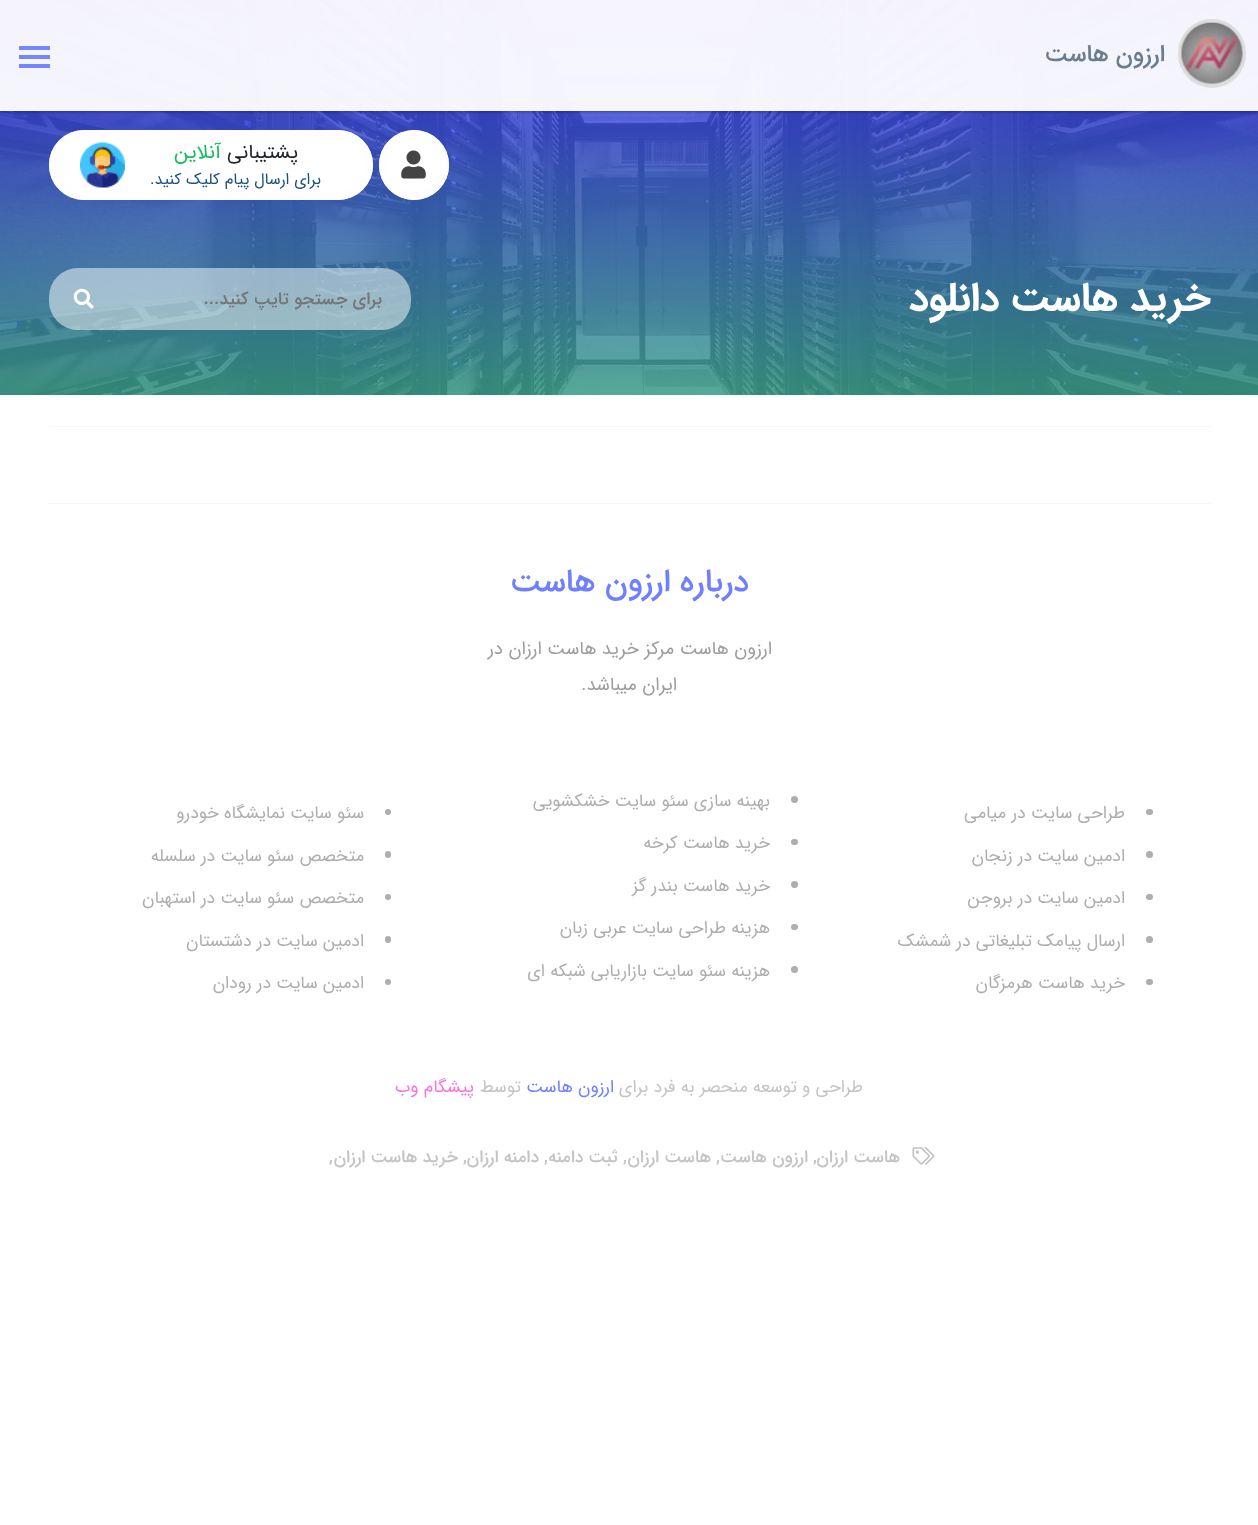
async function draw(canvas) {
  canvas.width = 1258;
  canvas.height = 1525;
  const ctx = canvas.getContext('2d');
  ctx.miterLimit = 4;
  ctx.fontKerning = 'normal';
  function label(s, x, y, font, color) {
    ctx.font = font;
    ctx.fillStyle = color;
    ctx.fillText(s, x, y);
  }
  function rect(x, y, w, h, color) {
    ctx.fillStyle = color;
    ctx.fillRect(x, y, w, h);
  }
  function roundedRect(x, y, w, h, r, color) {
    ctx.fillStyle = color;
    ctx.beginPath();
    ctx.roundRect(x, y, w, h, r);
    ctx.fill();
  }
  async function image(src, x, y, w, h) {
    const img = new Image();
    img.src = src;
    await img.decode();
    ctx.drawImage(img, x, y, w, h);
  }

  rect(0, 0, 1258, 1525, '#fff');
  await image('assets/img1.png', 0, 0, 1258, 395);
  ctx.save();
  ctx.beginPath();
  ctx.rect(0, 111, 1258, 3);
  ctx.clip();
  ctx.fillStyle = '#00000078';
  ctx.filter = 'blur(2px)';
  ctx.beginPath();
  ctx.rect(0, 0, 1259, 111);
  ctx.fill();
  ctx.filter = 'none';
  ctx.restore();
  rect(0, 0, 1258, 111, '#fffffff2');
  ctx.beginPath();
  ctx.roundRect(1180, 21, 64, 65, 32);
  ctx.strokeStyle = '#ddddde';
  ctx.lineWidth = 4;
  ctx.stroke();
  await image('assets/img2.png', 1181, 22, 62, 62);
  ctx.direction = 'rtl';
  label('ارزون هاست', 1165, 61, '500 24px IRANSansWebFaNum', '#6c7c8f');
  rect(19, 55, 31, 4, '#7686ff');
  rect(19, 46, 31, 4, '#7686ff');
  rect(19, 64, 31, 4, '#7686ff');
  ctx.fillStyle = '#fff';
  ctx.beginPath();
  ctx.arc(414, 165, 35, 0, 2 * Math.PI);
  ctx.fill();
  await image('assets/img3.png', 401, 150, 25, 29);
  ctx.beginPath();
  ctx.arc(414, 165, 31, 0, 2 * Math.PI);
  ctx.strokeStyle = '#fefefe';
  ctx.lineWidth = 8;
  ctx.stroke();
  roundedRect(49, 130, 324, 70, 35, '#fff');
  await image('assets/img4.png', 80, 142, 45, 46);
  ctx.beginPath();
  ctx.roundRect(53, 134, 316, 62, 31);
  ctx.stroke();
  label('پشتیبانی', 298, 158, '20px IRANSansWebFaNum', '#212529');
  label('آنلاین', 221, 158, '20px IRANSansWebFaNum', '#13bd5b');
  label('برای ارسال پیام کلیک کنید.', 321, 184, '16px IRANSansWebFaNum', '#1b527c');
  label('خرید هاست دانلود', 1211, 310, 'bold 40px IRANSansWebFaNum', '#fff');
  roundedRect(49, 268, 362, 62, 29, '#ffffff80');
  label('برای جستجو تایپ کنید...', 382, 304, '500 17.5px IRANSansWebFaNum', '#757575');
  await image('assets/img5.png', 73, 288, 21, 21);
  rect(49, 426, 1162, 1, '#f7f7f7');
  rect(49, 503, 1162, 1, '#f7f7f7');
  label('درباره ارزون هاست', 749, 591, '500 32px IRANSansWebFaNum', '#6f80ff');
  label('ارزون هاست مرکز خرید هاست ارزان در', 772, 654, '18.4px IRANSansWebFaNum', '#9d9d9d');
  label('ایران میباشد.', 677, 690, '18.4px IRANSansWebFaNum', '#9d9d9d');
  roundedRect(1146, 809, 7, 6, 3, '#aeaeae');
  label('طراحی سایت در میامی', 1125, 818, '17.5px IRANSansWebFaNum', '#aeaeae');
  ctx.beginPath();
  ctx.arc(1149.5, 854.5, 3.5, 0, 2 * Math.PI);
  ctx.fill();
  label('ادمین سایت در زنجان', 1125, 861, '17.5px IRANSansWebFaNum', '#aeaeae');
  roundedRect(1146, 894, 7, 6, 3, '#aeaeae');
  label('ادمین سایت در بروجن', 1125, 903, '17.5px IRANSansWebFaNum', '#aeaeae');
  ctx.beginPath();
  ctx.arc(1149.5, 939.5, 3.5, 0, 2 * Math.PI);
  ctx.fill();
  label('ارسال پیامک تبلیغاتی در شمشک', 1125, 946, '17.5px IRANSansWebFaNum', '#aeaeae');
  roundedRect(1146, 979, 7, 6, 3, '#aeaeae');
  label('خرید هاست هرمزگان', 1125, 988, '17.5px IRANSansWebFaNum', '#aeaeae');
  ctx.beginPath();
  ctx.arc(794.5, 799.5, 3.5, 0, 2 * Math.PI);
  ctx.fill();
  label('بهینه سازی سئو سایت خشکشویی', 770, 806, '17.5px IRANSansWebFaNum', '#aeaeae');
  roundedRect(791, 839, 7, 6, 3, '#aeaeae');
  label('خرید هاست کرخه', 770, 848, '17.5px IRANSansWebFaNum', '#aeaeae');
  ctx.beginPath();
  ctx.arc(794.5, 884.5, 3.5, 0, 2 * Math.PI);
  ctx.fill();
  label('خرید هاست بندر گز', 770, 891, '17.5px IRANSansWebFaNum', '#aeaeae');
  roundedRect(791, 924, 7, 6, 3, '#aeaeae');
  label('هزینه طراحی سایت عربی زبان', 770, 933, '17.5px IRANSansWebFaNum', '#aeaeae');
  ctx.beginPath();
  ctx.arc(794.5, 969.5, 3.5, 0, 2 * Math.PI);
  ctx.fill();
  label('هزینه سئو سایت بازاریابی شبکه ای', 770, 976, '17.5px IRANSansWebFaNum', '#aeaeae');
  ctx.beginPath();
  ctx.arc(388, 812, 3, 0, 2 * Math.PI);
  ctx.fill();
  label('سئو سایت نمایشگاه خودرو', 364, 818, '17.5px IRANSansWebFaNum', '#aeaeae');
  roundedRect(385, 851, 6, 7, 3, '#aeaeae');
  label('متخصص سئو سایت در سلسله', 364, 861, '17.5px IRANSansWebFaNum', '#aeaeae');
  ctx.beginPath();
  ctx.arc(388, 897, 3, 0, 2 * Math.PI);
  ctx.fill();
  label('متخصص سئو سایت در استهبان', 364, 903, '17.5px IRANSansWebFaNum', '#aeaeae');
  roundedRect(385, 936, 6, 7, 3, '#aeaeae');
  label('ادمین سایت در دشتستان', 364, 946, '17.5px IRANSansWebFaNum', '#aeaeae');
  ctx.beginPath();
  ctx.arc(388, 982, 3, 0, 2 * Math.PI);
  ctx.fill();
  label('ادمین سایت در رودان', 364, 988, '17.5px IRANSansWebFaNum', '#aeaeae');
  label('طراحی و توسعه منحصر به فرد برای', 863, 1092, '17.5px IRANSansWebFaNum', '#c4c4c4');
  label('ارزون هاست', 614, 1092, '17.5px IRANSansWebFaNum', '#6f80ff');
  label('توسط', 521, 1092, '17.5px IRANSansWebFaNum', '#c4c4c4');
  label('پیشگام وب', 474, 1092, '17.5px IRANSansWebFaNum', '#fc72dd');
  await image('assets/img6.png', 912, 1147, 23, 18);
  label('هاست ارزان', 900, 1162, '500 17.5px IRANSansWebFaNum', '#c4c4c4');
  ctx.direction = 'ltr';
  label(',', 813, 1162, '500 17.5px IRANSansWebFaNum', '#c4c4c4');
  ctx.direction = 'rtl';
  label('ارزون هاست', 808, 1162, '500 17.5px IRANSansWebFaNum', '#c4c4c4');
  ctx.direction = 'ltr';
  label(',', 716, 1162, '500 17.5px IRANSansWebFaNum', '#c4c4c4');
  ctx.direction = 'rtl';
  label('هاست ارزان', 711, 1162, '500 17.5px IRANSansWebFaNum', '#c4c4c4');
  ctx.direction = 'ltr';
  label(',', 623, 1162, '500 17.5px IRANSansWebFaNum', '#c4c4c4');
  ctx.direction = 'rtl';
  label('ثبت دامنه', 618, 1162, '500 17.5px IRANSansWebFaNum', '#c4c4c4');
  ctx.direction = 'ltr';
  label(',', 544, 1162, '500 17.5px IRANSansWebFaNum', '#c4c4c4');
  ctx.direction = 'rtl';
  label('دامنه ارزان', 539, 1162, '500 17.5px IRANSansWebFaNum', '#c4c4c4');
  ctx.direction = 'ltr';
  label(',', 463, 1162, '500 17.5px IRANSansWebFaNum', '#c4c4c4');
  ctx.direction = 'rtl';
  label('خرید هاست ارزان', 458, 1162, '500 17.5px IRANSansWebFaNum', '#c4c4c4');
  ctx.direction = 'ltr';
  label(',', 329, 1162, '500 17.5px IRANSansWebFaNum', '#c4c4c4');
}

draw(document.querySelector('canvas'));
